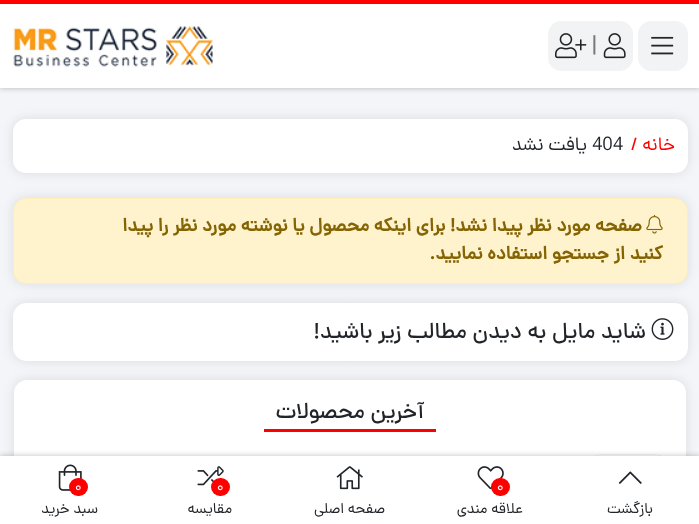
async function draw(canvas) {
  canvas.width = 699;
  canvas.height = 524;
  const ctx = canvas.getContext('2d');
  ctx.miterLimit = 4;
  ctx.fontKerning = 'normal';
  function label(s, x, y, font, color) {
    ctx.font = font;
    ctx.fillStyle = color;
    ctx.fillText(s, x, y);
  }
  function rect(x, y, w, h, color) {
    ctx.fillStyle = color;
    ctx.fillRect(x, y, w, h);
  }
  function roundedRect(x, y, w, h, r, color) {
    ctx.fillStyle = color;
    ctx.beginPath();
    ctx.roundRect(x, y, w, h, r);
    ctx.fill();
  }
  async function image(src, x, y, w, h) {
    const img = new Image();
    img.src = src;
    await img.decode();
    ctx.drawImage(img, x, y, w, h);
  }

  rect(0, 0, 699, 524, '#f4f5f9');
  ctx.fillStyle = '#00000030';
  ctx.filter = 'blur(2.5px)';
  ctx.beginPath();
  ctx.rect(0, 1, 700, 88);
  ctx.fill();
  ctx.filter = 'none';
  rect(0, 4, 699, 84, '#fff');
  rect(0, 0, 699, 4, '#f00');
  ctx.fillStyle = '#f1f3f4';
  ctx.beginPath();
  ctx.roundRect(638.5, 21.5, 49, 49, 12.5);
  ctx.fill();
  ctx.strokeStyle = '#f1f3f4';
  ctx.stroke();
  await image('assets/img1.png', 651, 36, 23, 19);
  ctx.beginPath();
  ctx.roundRect(548.5, 21.5, 84, 49, 12.5);
  ctx.fill();
  ctx.stroke();
  await image('assets/img2.png', 603, 33, 23, 26);
  label('|', 591, 52, '24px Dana', '#777');
  await image('assets/img3.png', 555, 33, 32, 26);
  await image('assets/img4.png', 13, 26, 200, 41);
  ctx.fillStyle = '#0000001a';
  ctx.filter = 'blur(6px)';
  ctx.beginPath();
  ctx.roundRect(13, 119, 675, 54, 13);
  ctx.fill();
  ctx.filter = 'none';
  roundedRect(13, 119, 675, 54, 13, '#fff');
  ctx.direction = 'rtl';
  label('خانه', 675, 150, '18.75px Dana', '#f00');
  ctx.direction = 'ltr';
  label('/', 631, 150, '18.75px Dana', '#f00');
  label('404', 592, 150, '18.75px Dana', '#212529');
  ctx.direction = 'rtl';
  label('یافت نشد', 587, 150, '18.75px Dana', '#212529');
  ctx.fillStyle = '#0000001a';
  ctx.filter = 'blur(6px)';
  ctx.beginPath();
  ctx.roundRect(13, 198, 675, 86, 13);
  ctx.fill();
  ctx.filter = 'none';
  ctx.fillStyle = '#fff3cd';
  ctx.beginPath();
  ctx.roundRect(13.5, 198.5, 674, 85, 12.5);
  ctx.fill();
  ctx.strokeStyle = '#ffeeba';
  ctx.stroke();
  await image('assets/img5.png', 646, 214, 17, 20);
  label('صفحه مورد نظر پیدا نشد! برای اینکه محصول یا نوشته مورد نظر را پیدا', 642, 231, 'bold 18.75px Dana', '#856404');
  label('کنید از جستجو استفاده نمایید.', 663, 259, 'bold 18.75px Dana', '#856404');
  ctx.fillStyle = '#0000001a';
  ctx.filter = 'blur(6px)';
  ctx.beginPath();
  ctx.roundRect(13, 303, 675, 58, 13);
  ctx.fill();
  ctx.filter = 'none';
  ctx.fillStyle = '#fff';
  ctx.beginPath();
  ctx.roundRect(13.5, 303.5, 674, 57, 12.5);
  ctx.fill();
  ctx.strokeStyle = '#fff';
  ctx.stroke();
  await image('assets/img6.png', 651, 318, 23, 22);
  label('شاید مایل به دیدن مطالب زیر باشید!', 646, 338, '500 22.5px Dana', '#212529');
  ctx.fillStyle = '#0000001a';
  ctx.filter = 'blur(6px)';
  ctx.beginPath();
  ctx.roundRect(14, 380, 672, 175, 13);
  ctx.fill();
  ctx.filter = 'none';
  roundedRect(14, 380, 672, 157, 13, '#fff');
  rect(264, 429, 172, 3, '#f00');
  label('آخرین محصولات', 424, 418, '500 22.5px Dana', '#212529');
  ctx.beginPath();
  ctx.roundRect(588.5, 454.5, 79, 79, 12.5);
  ctx.strokeStyle = '#f2f2f2';
  ctx.stroke();
  await image('assets/img7.png', 595, 455, 64, 1);
  ctx.fillStyle = '#00000030';
  ctx.filter = 'blur(2.5px)';
  ctx.beginPath();
  ctx.rect(0, 455, 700, 69);
  ctx.fill();
  ctx.filter = 'none';
  rect(0, 456, 699, 68, '#fff');
  await image('assets/img8.png', 618, 471, 24, 13);
  label('بازگشت', 653, 513, '15px Dana', '#212529');
  await image('assets/img9.png', 477, 466, 27, 24);
  roundedRect(491, 478, 19, 18, 9, '#f00');
  ctx.direction = 'ltr';
  label('0', 497, 491, '14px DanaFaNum', '#fff');
  ctx.direction = 'rtl';
  label('علاقه مندی', 523, 513, '15px Dana', '#212529');
  await image('assets/img10.png', 336, 466, 27, 24);
  label('صفحه اصلی', 385, 513, '15px Dana', '#212529');
  await image('assets/img11.png', 197, 466, 27, 20);
  roundedRect(211, 478, 19, 18, 9, '#f00');
  ctx.direction = 'ltr';
  label('0', 217, 491, '14px DanaFaNum', '#fff');
  ctx.direction = 'rtl';
  label('مقایسه', 232, 513, '15px Dana', '#212529');
  await image('assets/img12.png', 58, 464, 24, 27);
  roundedRect(69, 478, 19, 18, 9, '#f00');
  ctx.direction = 'ltr';
  label('0', 75, 491, '14px DanaFaNum', '#fff');
  ctx.direction = 'rtl';
  label('سبد خرید', 98, 513, '15px Dana', '#212529');
}

draw(document.querySelector('canvas'));
